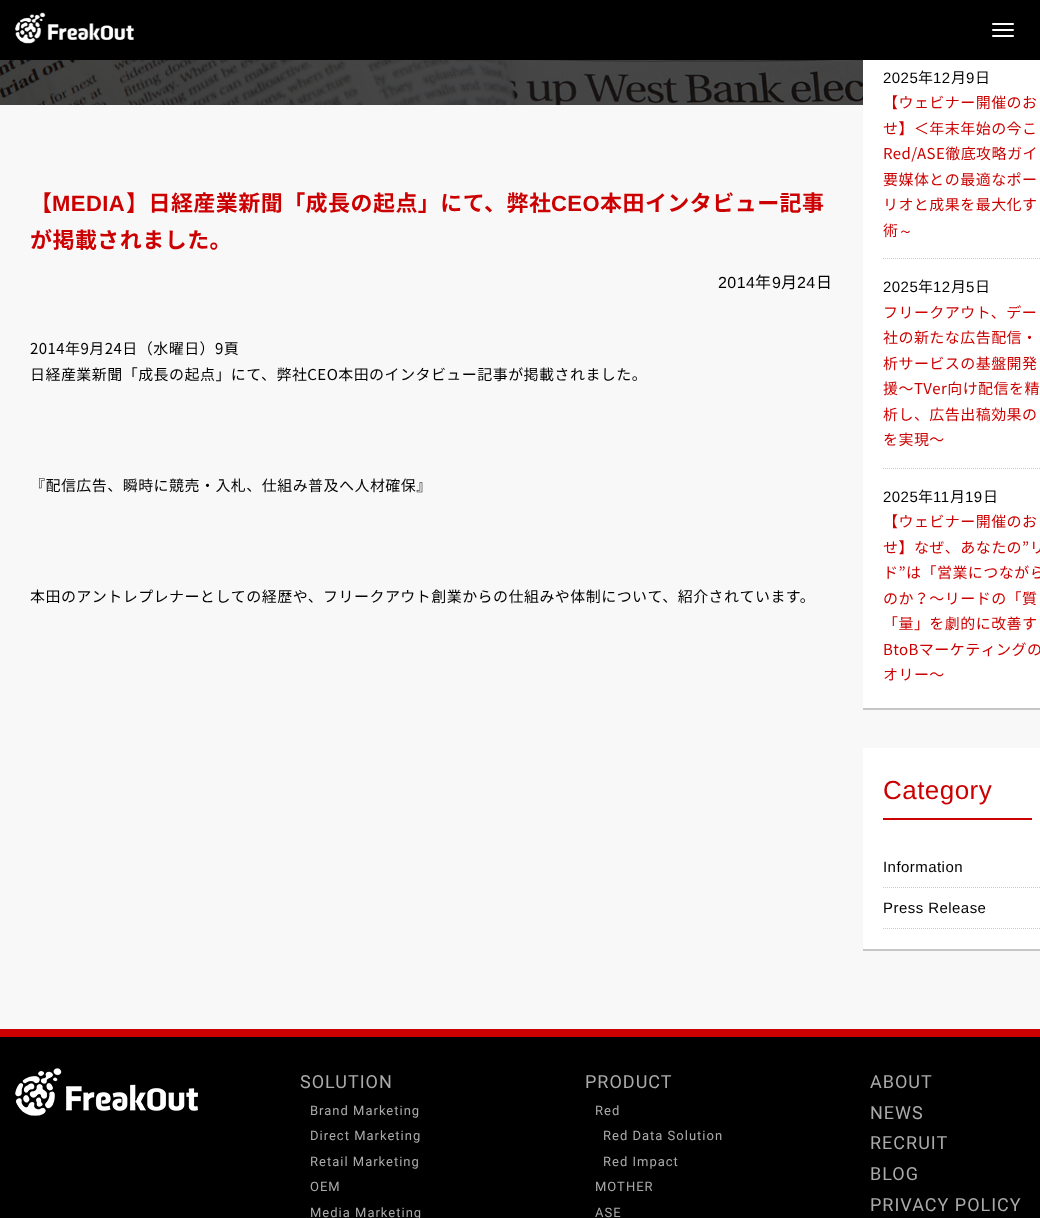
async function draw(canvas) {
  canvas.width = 1040;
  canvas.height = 1218;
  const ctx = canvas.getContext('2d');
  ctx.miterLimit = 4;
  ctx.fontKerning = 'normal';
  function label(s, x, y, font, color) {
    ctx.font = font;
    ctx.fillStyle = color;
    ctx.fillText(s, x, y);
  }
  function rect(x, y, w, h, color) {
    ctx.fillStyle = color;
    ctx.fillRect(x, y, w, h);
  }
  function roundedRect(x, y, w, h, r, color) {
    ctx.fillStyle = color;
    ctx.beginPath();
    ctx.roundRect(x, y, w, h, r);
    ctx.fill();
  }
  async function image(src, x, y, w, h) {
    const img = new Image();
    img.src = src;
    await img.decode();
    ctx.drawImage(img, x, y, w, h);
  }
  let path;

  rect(0, 0, 1040, 1218, '#f8f8f8');
  await image('assets/img2.png', 0, 60, 863, 45);
  ctx.fillStyle = '#00000033';
  ctx.filter = 'blur(0.5px)';
  ctx.beginPath();
  ctx.rect(863, 47, 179, 663);
  ctx.fill();
  ctx.filter = 'none';
  rect(0, 0, 1040, 60, '#000');
  await image('assets/img1.png', 15, 12, 119, 32);
  roundedRect(992, 23, 22, 2, 1, '#fff');
  roundedRect(992, 29, 22, 2, 1, '#fff');
  roundedRect(992, 35, 22, 2, 1, '#fff');
  ctx.letterSpacing = '0.45px';
  label('【', 30, 211, 'bold 22px Noto Sans JP', '#c00');
  label('MEDIA', 52, 211, 'bold 22px Liberation Sans', '#c00');
  label('】日経産業新聞「成長の起点」にて、弊社', 126, 211, 'bold 22px Noto Sans JP', '#c00');
  label('CEO', 551, 211, 'bold 22px Liberation Sans', '#c00');
  label('本田インタビュー記事', 600, 211, 'bold 22px Noto Sans JP', '#c00');
  label('が掲載されました。', 30, 248, 'bold 22px Noto Sans JP', '#c00');
  label('2014', 718, 288, '16px Liberation Sans', '#000');
  label('年', 755, 288, '16px Noto Sans JP', '#000');
  label('9', 772, 288, '16px Liberation Sans', '#000');
  label('月', 781, 288, '16px Noto Sans JP', '#000');
  label('24', 797, 288, '16px Liberation Sans', '#000');
  label('日', 816, 288, '16px Noto Sans JP', '#000');
  label('2014年9月24日（水曜日）9頁', 30, 354, '15px Noto Sans JP', '#000');
  label('日経産業新聞「成長の起点」にて、弊社CEO本田のインタビュー記事が掲載されました。', 30, 380, '15px Noto Sans JP', '#000');
  label('『配信広告、瞬時に競売・入札、仕組み普及へ人材確保』', 30, 491, '15px Noto Sans JP', '#000');
  label('本田のアントレプレナーとしての経歴や、フリークアウト創業からの仕組みや体制について、紹介されています。', 30, 602, '15px Noto Sans JP', '#000');
  rect(863, 60, 177, 648, '#fff');
  label('2025', 883, 83, '15px Liberation Sans', '#000');
  label('年', 918, 83, '15px Noto Sans JP', '#000');
  label('12', 933, 83, '15px Liberation Sans', '#000');
  label('月', 951, 83, '15px Noto Sans JP', '#000');
  label('9', 966, 83, '15px Liberation Sans', '#000');
  label('日', 975, 83, '15px Noto Sans JP', '#000');
  label('【ウェビナー開催のお', 883, 108, '15px Noto Sans JP', '#c00');
  label('せ】＜年末年始の今こ', 883, 134, '15px Noto Sans JP', '#c00');
  label('Red/ASE徹底攻略ガイ', 883, 159, '15px Noto Sans JP', '#c00');
  label('要媒体との最適なポー', 883, 185, '15px Noto Sans JP', '#c00');
  label('リオと成果を最大化す', 883, 210, '15px Noto Sans JP', '#c00');
  label('術', 883, 236, '15px Noto Sans JP', '#c00');
  label('～', 898, 236, '500 15px WenQuanYi Zen Hei', '#c00');
  path = new Path2D('M883 258.5H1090');
  ctx.strokeStyle = '#ccc';
  ctx.setLineDash([1, 1]);
  ctx.stroke(path);
  label('2025', 883, 292, '15px Liberation Sans', '#000');
  label('年', 918, 292, '15px Noto Sans JP', '#000');
  label('12', 933, 292, '15px Liberation Sans', '#000');
  label('月', 951, 292, '15px Noto Sans JP', '#000');
  label('5', 966, 292, '15px Liberation Sans', '#000');
  label('日', 975, 292, '15px Noto Sans JP', '#000');
  label('フリークアウト、デー', 883, 318, '15px Noto Sans JP', '#c00');
  label('社の新たな広告配信・', 883, 343, '15px Noto Sans JP', '#c00');
  label('析サービスの基盤開発', 883, 369, '15px Noto Sans JP', '#c00');
  label('援〜TVer向け配信を精', 883, 394, '15px Noto Sans JP', '#c00');
  label('析し、広告出稿効果の', 883, 420, '15px Noto Sans JP', '#c00');
  label('を実現〜', 883, 445, '15px Noto Sans JP', '#c00');
  path = new Path2D('M883 468.5H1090');
  ctx.stroke(path);
  label('2025', 883, 502, '15px Liberation Sans', '#000');
  label('年', 918, 502, '15px Noto Sans JP', '#000');
  label('11', 933, 502, '15px Liberation Sans', '#000');
  label('月', 950, 502, '15px Noto Sans JP', '#000');
  label('19', 965, 502, '15px Liberation Sans', '#000');
  label('日', 983, 502, '15px Noto Sans JP', '#000');
  label('【ウェビナー開催のお', 883, 527, '15px Noto Sans JP', '#c00');
  label('せ】なぜ、あなたの”リ', 883, 553, '15px Noto Sans JP', '#c00');
  label('ド”は「営業につながら', 883, 578, '15px Noto Sans JP', '#c00');
  label('のか？〜リードの「質', 883, 604, '15px Noto Sans JP', '#c00');
  label('「量」を劇的に改善す', 883, 629, '15px Noto Sans JP', '#c00');
  label('BtoBマーケティングの', 883, 655, '15px Noto Sans JP', '#c00');
  label('オリー〜', 883, 680, '15px Noto Sans JP', '#c00');
  ctx.fillStyle = '#00000033';
  ctx.filter = 'blur(0.5px)';
  ctx.beginPath();
  ctx.rect(863, 750, 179, 201);
  ctx.fill();
  ctx.filter = 'none';
  rect(863, 748, 177, 201, '#fff');
  rect(883, 818, 149, 2, '#c00');
  label('Category', 883, 799, '26px Liberation Sans', '#c00');
  path = new Path2D('M883 887.5H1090');
  ctx.stroke(path);
  label('Information', 883, 872, '15px Liberation Sans', '#000');
  path = new Path2D('M883 928.5H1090');
  ctx.stroke(path);
  label('Press Release', 883, 913, '15px Liberation Sans', '#000');
  rect(0, 1037, 1040, 181, '#000');
  rect(0, 1029, 1040, 8, '#c00');
  await image('assets/img3.png', 15, 1068, 183, 48);
  ctx.letterSpacing = '1px';
  label('SOLUTION', 300, 1088, '18px Roboto', '#aaa');
  label('Brand Marketing', 310, 1115, '13px Roboto', '#aaa');
  label('Direct Marketing', 310, 1140, '13px Roboto', '#aaa');
  label('Retail Marketing', 310, 1166, '13px Roboto', '#aaa');
  label('OEM', 310, 1191, '13px Roboto', '#aaa');
  label('Media Marketing', 310, 1217, '13px Roboto', '#aaa');
  label('PRODUCT', 585, 1088, '18px Roboto', '#aaa');
  label('Red', 595, 1115, '13px Roboto', '#aaa');
  label('Red Data Solution', 603, 1140, '13px Roboto', '#aaa');
  label('Red Impact', 603, 1166, '13px Roboto', '#aaa');
  label('MOTHER', 595, 1191, '13px Roboto', '#aaa');
  label('ASE', 595, 1217, '13px Roboto', '#aaa');
  label('ABOUT', 870, 1088, '18px Roboto', '#aaa');
  label('NEWS', 870, 1119, '18px Roboto', '#aaa');
  label('RECRUIT', 870, 1149, '18px Roboto', '#aaa');
  label('BLOG', 870, 1180, '18px Roboto', '#aaa');
  label('PRIVACY POLICY', 870, 1211, '18px Roboto', '#aaa');
}

draw(document.querySelector('canvas'));
